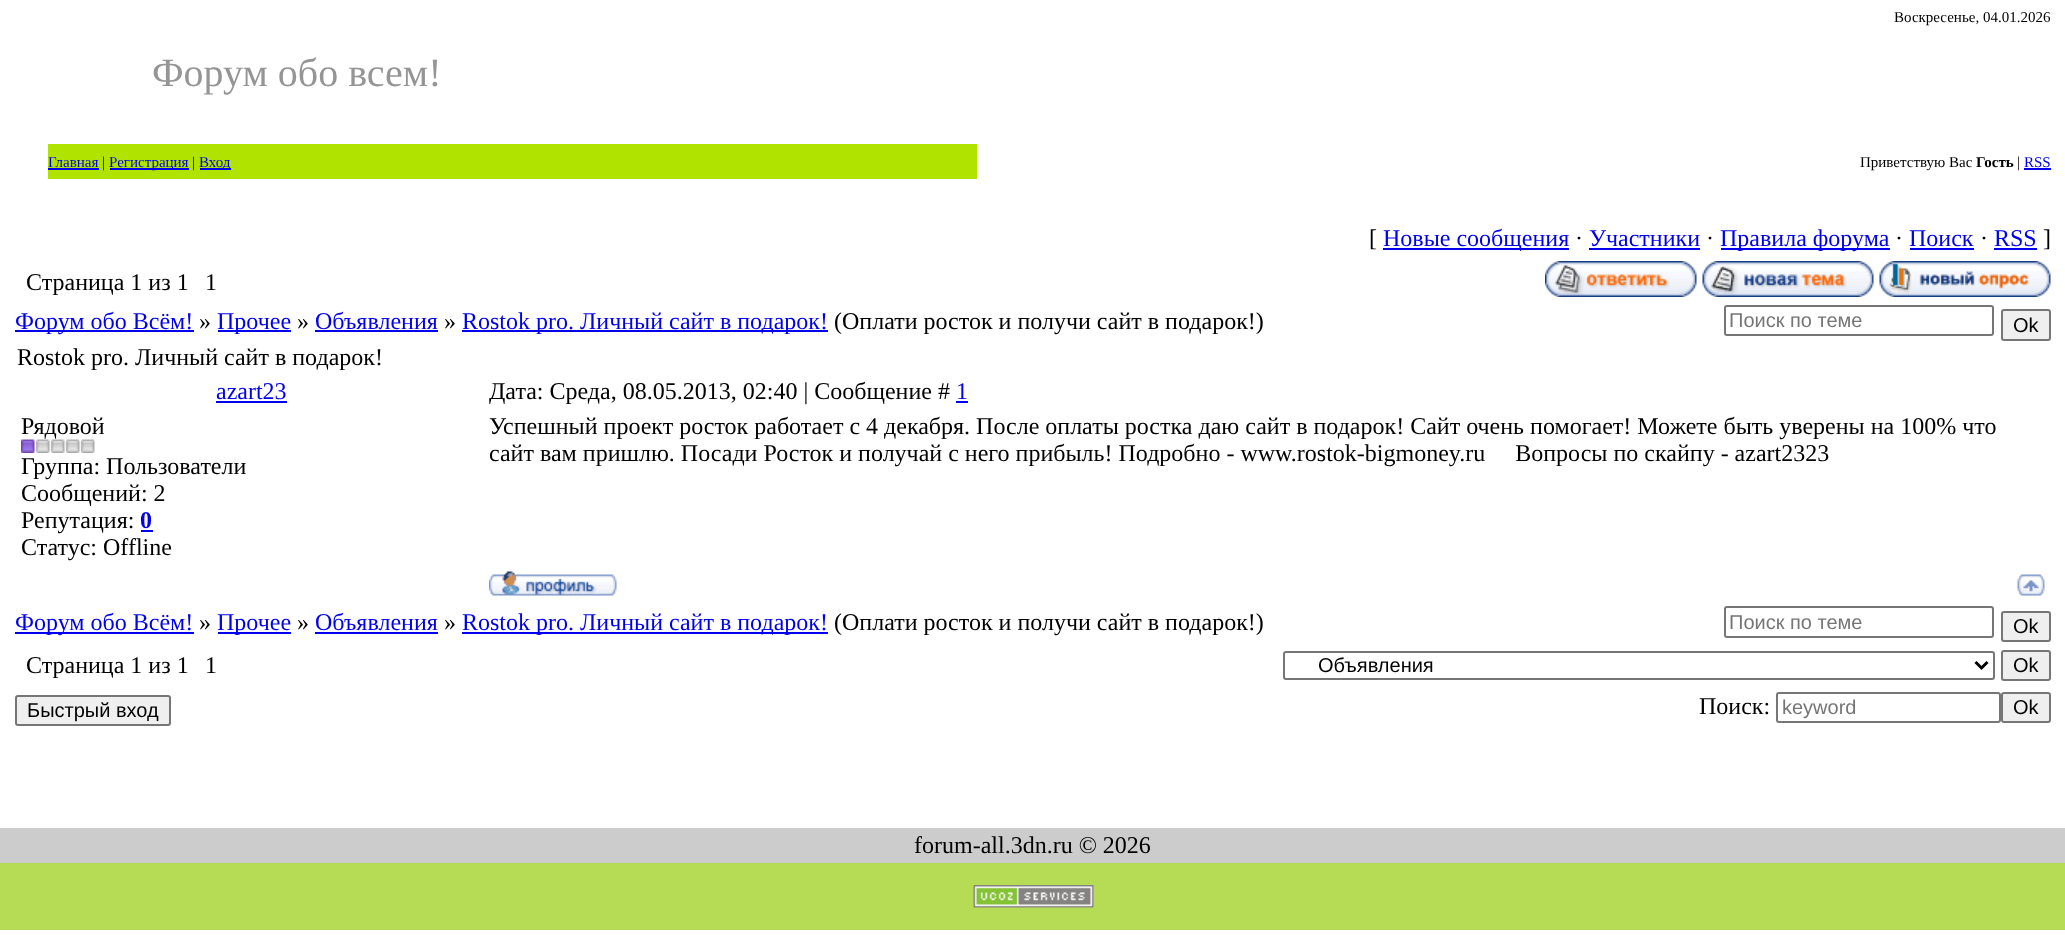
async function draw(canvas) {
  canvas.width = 2065;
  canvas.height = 935;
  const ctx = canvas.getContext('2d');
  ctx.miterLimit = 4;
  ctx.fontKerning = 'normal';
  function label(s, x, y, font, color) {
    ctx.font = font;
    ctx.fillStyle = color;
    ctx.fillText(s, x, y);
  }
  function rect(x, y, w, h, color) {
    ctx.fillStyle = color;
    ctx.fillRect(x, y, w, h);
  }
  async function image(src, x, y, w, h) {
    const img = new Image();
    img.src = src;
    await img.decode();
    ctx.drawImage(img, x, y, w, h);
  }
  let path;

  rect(0, 0, 2065, 935, '#fff');
  label('Воскресенье, 04.01.2026', 1894, 22, '15px Liberation Serif', '#000');
  label('Форум обо всем!', 152, 86, '40px Liberation Serif', '#969595');
  rect(48, 144, 929, 35, '#b0e300');
  label('Главная', 48, 167, '15px Liberation Serif', '#00e');
  rect(48, 168, 51, 2, '#00e');
  label('|', 102, 167, '15px Liberation Serif', '#000');
  rect(110, 168, 79, 2, '#00e');
  label('Регистрация', 109, 167, '15px Liberation Serif', '#00e');
  label('|', 192, 167, '15px Liberation Serif', '#000');
  rect(200, 168, 31, 2, '#00e');
  label('Вход', 199, 167, '15px Liberation Serif', '#00e');
  label('Приветствую Вас', 1860, 167, '15px Liberation Serif', '#000');
  label('Гость', 1976, 167, 'bold 15px Liberation Serif', '#000');
  label('|', 2017, 167, '15px Liberation Serif', '#000');
  label('RSS', 2024, 167, '15px Liberation Serif', '#00e');
  rect(2024, 168, 27, 2, '#00e');
  label('[', 1369, 246, '24px Liberation Serif', '#000');
  rect(1383, 248, 186, 2, '#00e');
  label('Новые сообщения', 1383, 246, '24px Liberation Serif', '#00e');
  label('·', 1575, 246, '24px Liberation Serif', '#000');
  label('Участники', 1589, 246, '24px Liberation Serif', '#00e');
  rect(1589, 248, 111, 2, '#00e');
  label('·', 1706, 246, '24px Liberation Serif', '#000');
  rect(1721, 248, 169, 2, '#00e');
  label('Правила форума', 1720, 246, '24px Liberation Serif', '#00e');
  label('·', 1895, 246, '24px Liberation Serif', '#000');
  label('Поиск', 1909, 246, '24px Liberation Serif', '#00e');
  rect(1910, 248, 64, 2, '#00e');
  label('·', 1980, 246, '24px Liberation Serif', '#000');
  label('RSS', 1994, 246, '24px Liberation Serif', '#00e');
  rect(1994, 248, 43, 2, '#00e');
  label(']', 2043, 246, '24px Liberation Serif', '#000');
  label('Страница 1 из 1', 26, 290, '24px Liberation Serif', '#000');
  label('1', 205, 290, '24px Liberation Serif', '#000');
  await image('assets/img1.png', 1545, 261, 152, 36);
  await image('assets/img2.png', 1702, 261, 172, 36);
  await image('assets/img3.png', 1879, 261, 172, 36);
  rect(15, 330, 179, 2, '#00e');
  label('Форум обо Всём!', 15, 329, '24px Liberation Serif', '#00e');
  label('»', 199, 329, '24px Liberation Serif', '#000');
  rect(218, 330, 73, 2, '#00e');
  label('Прочее', 217, 329, '24px Liberation Serif', '#00e');
  label('»', 297, 329, '24px Liberation Serif', '#000');
  label('Объявления', 315, 329, '24px Liberation Serif', '#00e');
  rect(315, 330, 123, 2, '#00e');
  label('»', 444, 329, '24px Liberation Serif', '#000');
  rect(462, 330, 366, 2, '#00e');
  label('Rostok pro. Личный сайт в подарок!', 462, 329, '24px Liberation Serif', '#00e');
  label('(Оплати росток и получи сайт в подарок!)', 834, 329, '24px Liberation Serif', '#000');
  ctx.beginPath();
  ctx.roundRect(1725, 306, 268, 29, 2);
  ctx.strokeStyle = '#767676';
  ctx.lineWidth = 2;
  ctx.stroke();
  label('Поиск по теме', 1729, 327, '20px Liberation Sans', '#757575');
  ctx.fillStyle = '#efefef';
  ctx.beginPath();
  ctx.roundRect(2002, 310, 48, 30, 2);
  ctx.fill();
  ctx.stroke();
  label('Ok', 2013, 332, '20px Liberation Sans', '#000');
  label('Rostok pro. Личный сайт в подарок!', 17, 365, '24px Liberation Serif', '#000');
  label('azart23', 216, 399, '24px Liberation Serif', '#00e');
  rect(216, 401, 71, 2, '#00e');
  label('Дата: Среда, 08.05.2013, 02:40 | Сообщение #', 489, 399, '24px Liberation Serif', '#000');
  label('1', 956, 399, '24px Liberation Serif', '#00e');
  rect(956, 401, 12, 2, '#00e');
  label('Рядовой', 21, 434, '24px Liberation Serif', '#000');
  await image('assets/img4.png', 21, 439, 74, 14);
  label('Группа: Пользователи', 21, 474, '24px Liberation Serif', '#000');
  label('Сообщений: 2', 21, 501, '24px Liberation Serif', '#000');
  label('Репутация:', 21, 528, '24px Liberation Serif', '#000');
  label('0', 140, 528, 'bold 24px Liberation Serif', '#00e');
  rect(141, 530, 12, 2, '#00e');
  label('Статус: Offline', 21, 555, '24px Liberation Serif', '#000');
  label('Успешный проект росток работает с 4 декабря. После оплаты ростка даю сайт в подарок! Сайт очень помогает! Можете быть уверены на 100% что', 489, 434, '24px Liberation Serif', '#000');
  label('сайт вам пришлю. Посади Росток и получай с него прибыль! Подробно - www.rostok-bigmoney.ru     Вопросы по скайпу - azart2323', 489, 461, '24px Liberation Serif', '#000');
  await image('assets/img5.png', 489, 571, 128, 25);
  await image('assets/img6.png', 2017, 574, 28, 22);
  rect(15, 632, 179, 2, '#00e');
  label('Форум обо Всём!', 15, 630, '24px Liberation Serif', '#00e');
  label('»', 199, 630, '24px Liberation Serif', '#000');
  rect(218, 632, 73, 2, '#00e');
  label('Прочее', 217, 630, '24px Liberation Serif', '#00e');
  label('»', 297, 630, '24px Liberation Serif', '#000');
  label('Объявления', 315, 630, '24px Liberation Serif', '#00e');
  rect(315, 632, 123, 2, '#00e');
  label('»', 444, 630, '24px Liberation Serif', '#000');
  rect(462, 632, 366, 2, '#00e');
  label('Rostok pro. Личный сайт в подарок!', 462, 630, '24px Liberation Serif', '#00e');
  label('(Оплати росток и получи сайт в подарок!)', 834, 630, '24px Liberation Serif', '#000');
  ctx.beginPath();
  ctx.roundRect(1725, 607, 268, 30, 2);
  ctx.stroke();
  label('Поиск по теме', 1729, 629, '20px Liberation Sans', '#757575');
  ctx.fillStyle = '#efefef';
  ctx.beginPath();
  ctx.roundRect(2002, 612, 48, 29, 2);
  ctx.fill();
  ctx.stroke();
  label('Ok', 2013, 633, '20px Liberation Sans', '#000');
  label('Страница 1 из 1', 26, 673, '24px Liberation Serif', '#000');
  label('1', 205, 673, '24px Liberation Serif', '#000');
  ctx.beginPath();
  ctx.roundRect(1284, 652, 710, 27, 2);
  ctx.stroke();
  path = new Path2D('M1975.5 662L1981.5 668L1987.5 662');
  ctx.strokeStyle = '#000';
  ctx.lineWidth = 3;
  ctx.stroke(path);
  label('Объявления', 1318, 672, '20px Liberation Sans', '#000');
  ctx.fillStyle = '#efefef';
  ctx.beginPath();
  ctx.roundRect(2002, 651, 48, 29, 2);
  ctx.fill();
  ctx.strokeStyle = '#767676';
  ctx.lineWidth = 2;
  ctx.stroke();
  label('Ok', 2013, 672, '20px Liberation Sans', '#000');
  ctx.fillStyle = '#efefef';
  ctx.beginPath();
  ctx.roundRect(16, 696, 154, 29, 2);
  ctx.fill();
  ctx.stroke();
  label('Быстрый вход', 27, 717, '20px Liberation Sans', '#000');
  label('Поиск:', 1699, 714, '24px Liberation Serif', '#000');
  ctx.beginPath();
  ctx.roundRect(1777, 693, 223, 29, 2);
  ctx.stroke();
  label('keyword', 1782, 714, '20px Liberation Sans', '#757575');
  ctx.fillStyle = '#efefef';
  ctx.beginPath();
  ctx.roundRect(2002, 693, 48, 29, 2);
  ctx.fill();
  ctx.stroke();
  label('Ok', 2013, 714, '20px Liberation Sans', '#000');
  rect(0, 828, 2065, 35, '#ccc');
  label('forum-all.3dn.ru © 2026', 914, 853, '24px Liberation Serif', '#000');
  rect(0, 863, 2065, 67, '#b5dc54');
  await image('assets/img7.png', 973, 885, 121, 23);
}

draw(document.querySelector('canvas'));
